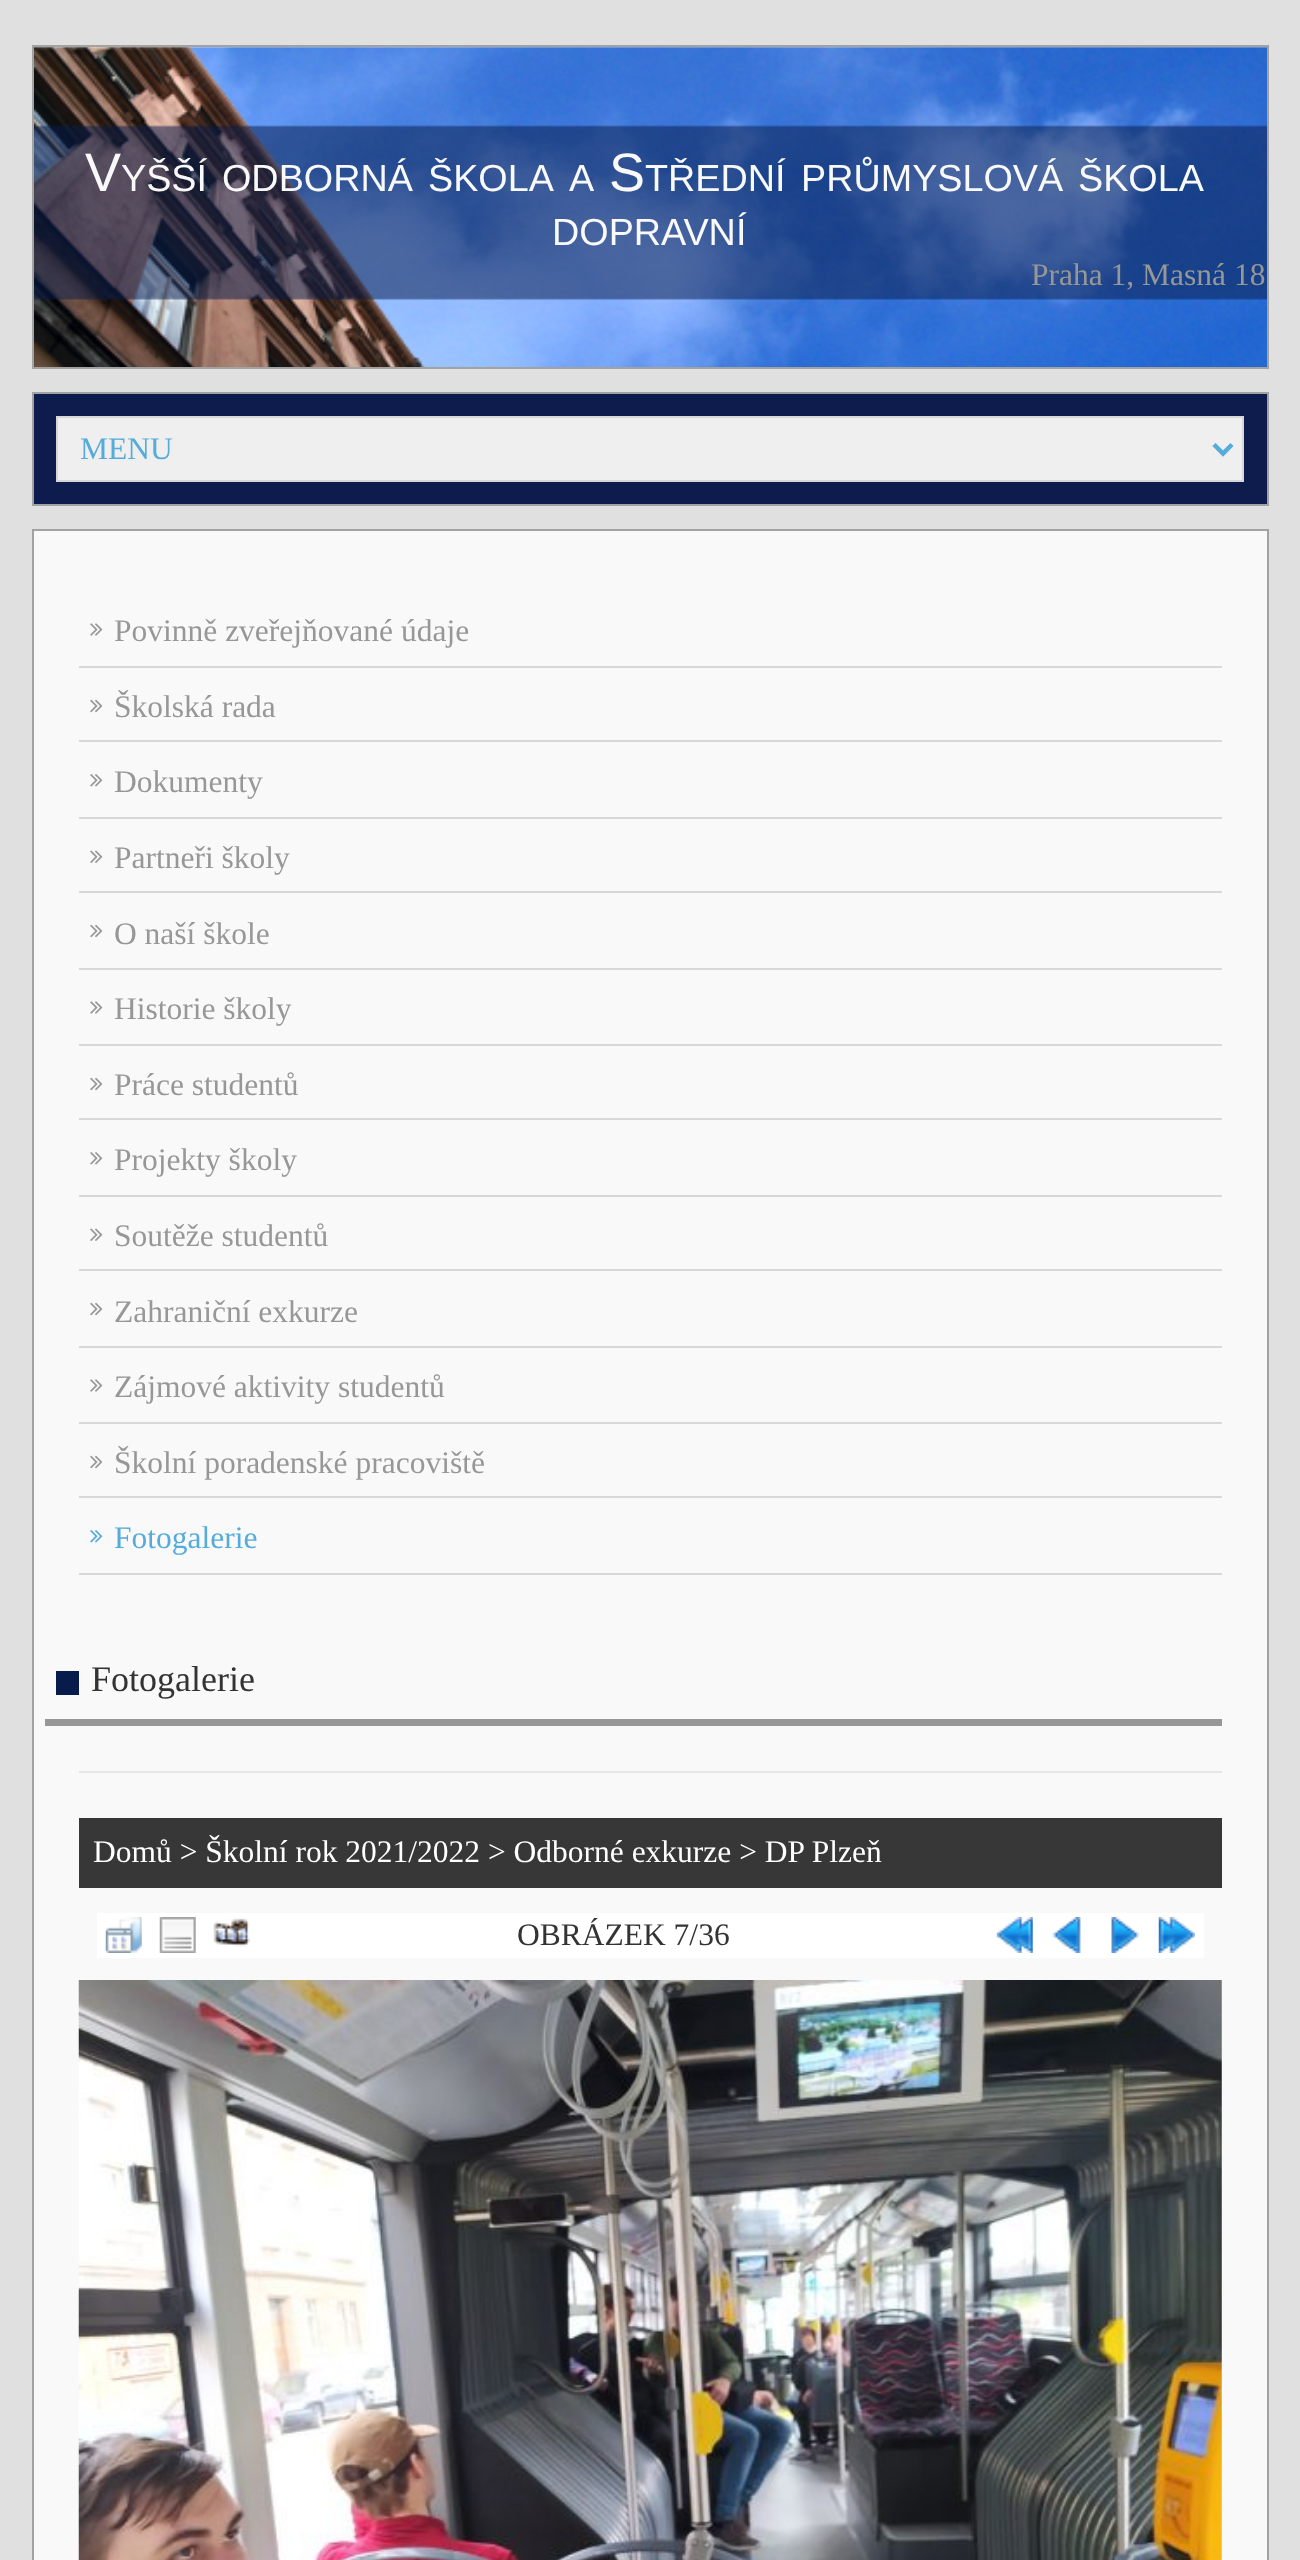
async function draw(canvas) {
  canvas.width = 1300;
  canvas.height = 2560;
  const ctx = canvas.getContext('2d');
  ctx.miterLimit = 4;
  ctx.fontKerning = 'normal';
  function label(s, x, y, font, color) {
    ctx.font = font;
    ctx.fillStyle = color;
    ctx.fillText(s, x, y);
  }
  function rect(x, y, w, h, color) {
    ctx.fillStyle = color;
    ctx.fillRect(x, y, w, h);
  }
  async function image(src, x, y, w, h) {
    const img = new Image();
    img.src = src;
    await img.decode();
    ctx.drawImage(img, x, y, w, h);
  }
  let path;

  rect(0, 0, 1300, 2560, '#e0e0e0');
  rect(34, 47, 1233, 4, '#fff');
  await image('assets/img1.png', 34, 47, 1233, 320);
  ctx.strokeStyle = '#a2a2a2';
  ctx.lineWidth = 2;
  ctx.strokeRect(33, 46, 1235, 322);
  label('V', 85, 191, '54px Liberation Sans', '#f9f9f9');
  label('YŠŠÍ', 121, 191, '37.75px Liberation Sans', '#f9f9f9');
  label('ODBORNÁ', 222, 191, '37.75px Liberation Sans', '#f9f9f9');
  label('ŠKOLA', 428, 191, '37.75px Liberation Sans', '#f9f9f9');
  label('A', 569, 191, '37.75px Liberation Sans', '#f9f9f9');
  label('S', 609, 191, '54px Liberation Sans', '#f9f9f9');
  label('TŘEDNÍ', 645, 191, '37.75px Liberation Sans', '#f9f9f9');
  label('PRŮMYSLOVÁ', 801, 191, '37.75px Liberation Sans', '#f9f9f9');
  label('ŠKOLA', 1078, 191, '37.75px Liberation Sans', '#f9f9f9');
  label('DOPRAVNÍ', 552, 245, '37.75px Liberation Sans', '#f9f9f9');
  label('Praha 1, Masná 18', 1031, 285, '31.5px Liberation Serif', '#979797');
  ctx.fillStyle = '#0d1c4c';
  ctx.beginPath();
  ctx.rect(33, 393, 1235, 112);
  ctx.fill();
  ctx.stroke();
  ctx.fillStyle = '#efefef';
  ctx.beginPath();
  ctx.rect(57, 417, 1186, 64);
  ctx.fill();
  ctx.strokeStyle = '#d7d7d7';
  ctx.stroke();
  path = new Path2D('M1214 444.5L1223 453.5L1232 444.5');
  ctx.strokeStyle = '#55abda';
  ctx.lineWidth = 4.5;
  ctx.stroke(path);
  label('MENU', 80, 459, '31.5px Liberation Serif', '#55abda');
  ctx.fillStyle = '#f9f9f9';
  ctx.beginPath();
  ctx.rect(33, 530, 1235, 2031);
  ctx.fill();
  ctx.strokeStyle = '#a2a2a2';
  ctx.lineWidth = 2;
  ctx.stroke();
  rect(79, 666, 1143, 2, '#d7d7d7');
  await image('assets/img2.png', 90, 623, 13, 13);
  label('Povinně zveřejňované údaje', 114, 641, '31.5px Liberation Serif', '#979797');
  rect(79, 740, 1143, 2, '#d7d7d7');
  await image('assets/img3.png', 90, 699, 13, 14);
  label('Školská rada', 114, 717, '31.5px Liberation Serif', '#979797');
  rect(79, 817, 1143, 2, '#d7d7d7');
  await image('assets/img4.png', 90, 774, 13, 13);
  label('Dokumenty', 114, 792, '31.5px Liberation Serif', '#979797');
  rect(79, 891, 1143, 2, '#d7d7d7');
  await image('assets/img5.png', 90, 850, 13, 13);
  label('Partneři školy', 114, 868, '31.5px Liberation Serif', '#979797');
  rect(79, 968, 1143, 2, '#d7d7d7');
  await image('assets/img3.png', 90, 924, 13, 14);
  label('O naší škole', 114, 944, '31.5px Liberation Serif', '#979797');
  rect(79, 1044, 1143, 2, '#d7d7d7');
  await image('assets/img2.png', 90, 1001, 13, 13);
  label('Historie školy', 114, 1019, '31.5px Liberation Serif', '#979797');
  rect(79, 1118, 1143, 2, '#d7d7d7');
  await image('assets/img3.png', 90, 1077, 13, 14);
  label('Práce studentů', 114, 1095, '31.5px Liberation Serif', '#979797');
  rect(79, 1195, 1143, 2, '#d7d7d7');
  await image('assets/img4.png', 90, 1152, 13, 13);
  label('Projekty školy', 114, 1170, '31.5px Liberation Serif', '#979797');
  rect(79, 1269, 1143, 2, '#d7d7d7');
  await image('assets/img5.png', 90, 1228, 13, 13);
  label('Soutěže studentů', 114, 1246, '31.5px Liberation Serif', '#979797');
  rect(79, 1346, 1143, 2, '#d7d7d7');
  await image('assets/img3.png', 90, 1302, 13, 14);
  label('Zahraniční exkurze', 114, 1322, '31.5px Liberation Serif', '#979797');
  rect(79, 1422, 1143, 2, '#d7d7d7');
  await image('assets/img2.png', 90, 1379, 13, 13);
  label('Zájmové aktivity studentů', 114, 1397, '31.5px Liberation Serif', '#979797');
  rect(79, 1496, 1143, 2, '#d7d7d7');
  await image('assets/img3.png', 90, 1455, 13, 14);
  label('Školní poradenské pracoviště', 114, 1473, '31.5px Liberation Serif', '#979797');
  rect(79, 1573, 1143, 2, '#d7d7d7');
  await image('assets/img6.png', 90, 1530, 13, 13);
  label('Fotogalerie', 114, 1548, '31.5px Liberation Serif', '#55abda');
  rect(79, 1771, 1143, 2, '#e7e7e7');
  rect(56, 1671, 23, 24, '#081c4b');
  rect(45, 1719, 1177, 7, '#979797');
  label('Fotogalerie', 91, 1691, '36px Liberation Serif', '#333');
  rect(79, 1818, 1143, 70, '#373737');
  label('Domů > Školní rok 2021/2022 > Odborné exkurze > DP Plzeň', 93, 1862, '31.5px Liberation Serif', '#fff');
  rect(97, 1913, 1107, 45, '#fff');
  await image('assets/img7.png', 105, 1917, 37, 36);
  await image('assets/img8.png', 159, 1917, 37, 36);
  await image('assets/img9.png', 213, 1918, 37, 29);
  label('OBRÁZEK 7/36', 517, 1945, '31.5px Liberation Serif', '#333');
  await image('assets/img10.png', 996, 1917, 37, 36);
  await image('assets/img11.png', 1052, 1917, 29, 36);
  await image('assets/img12.png', 1111, 1917, 28, 36);
  await image('assets/img13.png', 1158, 1917, 37, 36);
  await image('assets/img14.png', 78, 1980, 1144, 580);
}

draw(document.querySelector('canvas'));
